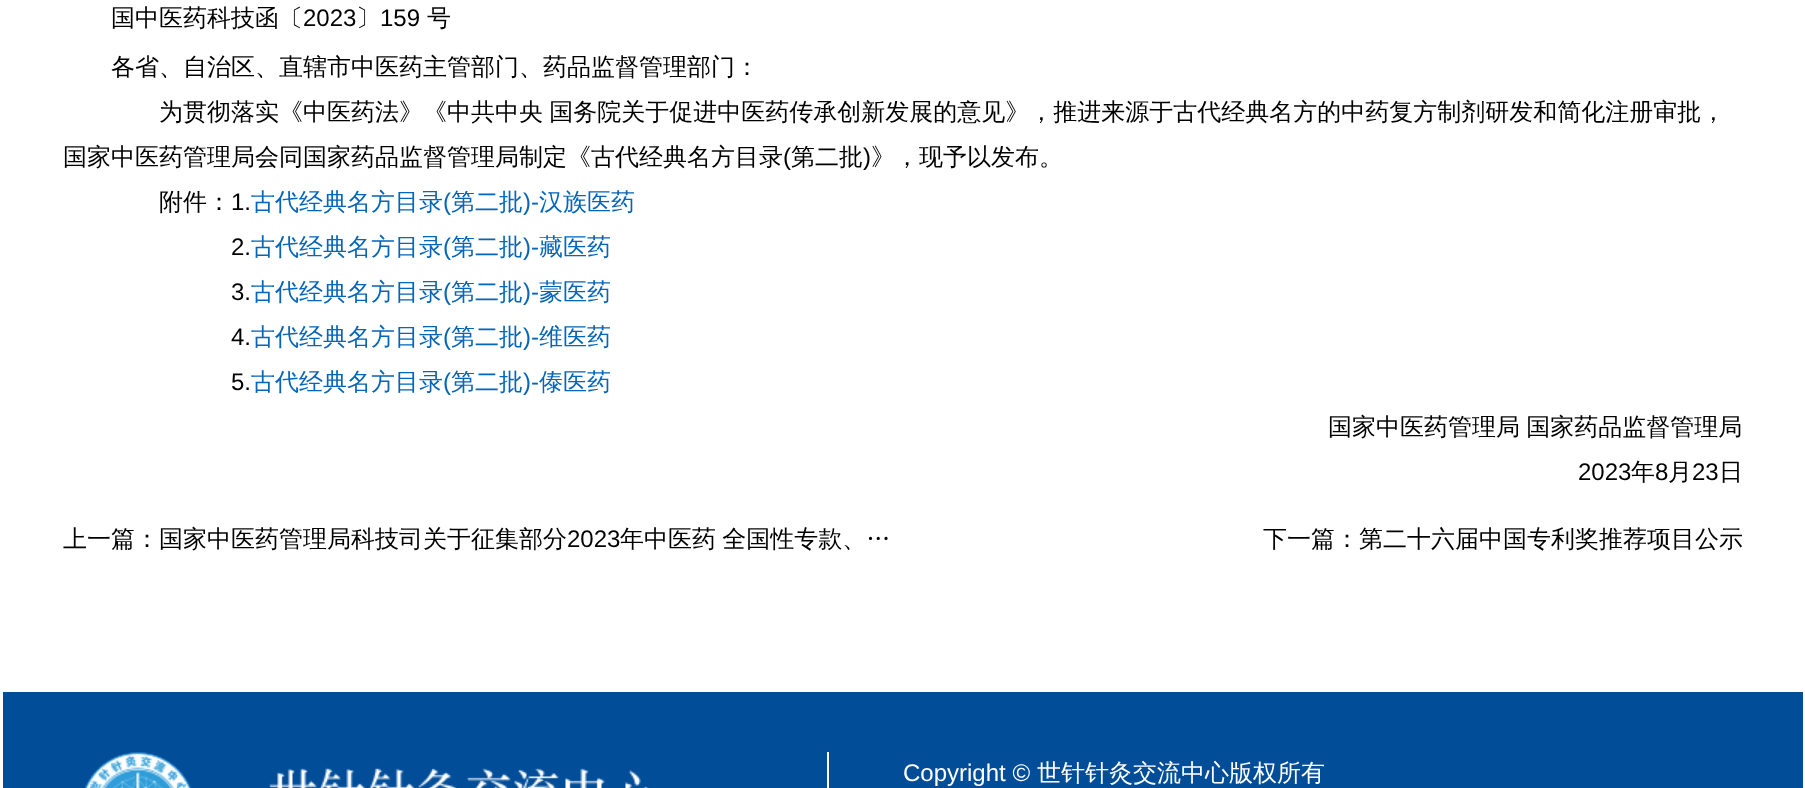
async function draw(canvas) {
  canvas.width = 1805;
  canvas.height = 788;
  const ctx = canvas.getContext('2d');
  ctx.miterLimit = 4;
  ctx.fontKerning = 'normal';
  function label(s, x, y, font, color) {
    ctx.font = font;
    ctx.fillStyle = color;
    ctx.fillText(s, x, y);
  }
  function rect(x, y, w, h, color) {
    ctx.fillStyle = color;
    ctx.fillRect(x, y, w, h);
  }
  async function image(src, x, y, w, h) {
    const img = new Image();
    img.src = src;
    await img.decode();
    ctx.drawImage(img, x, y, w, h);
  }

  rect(0, 0, 1805, 788, '#fff');
  label('国中医药科技函〔', 111, 26, '500 24px WenQuanYi Zen Hei', '#000');
  label('2023', 303, 26, '24px Liberation Sans', '#000');
  label('〕', 356, 26, '500 24px WenQuanYi Zen Hei', '#000');
  label('159', 380, 26, '24px Liberation Sans', '#000');
  label('号', 427, 26, '500 24px WenQuanYi Zen Hei', '#000');
  label('各省、自治区、直辖市中医药主管部门、药品监督管理部门：', 111, 75, '500 24px WenQuanYi Zen Hei', '#000');
  ctx.wordSpacing = '-1px';
  label('为贯彻落实《中医药法》《中共中央 国务院关于促进中医药传承创新发展的意见》，推进来源于古代经典名方的中药复方制剂研发和简化注册审批，', 159, 120, '500 24px WenQuanYi Zen Hei', '#000');
  ctx.wordSpacing = '0px';
  label('国家中医药管理局会同国家药品监督管理局制定《古代经典名方目录', 63, 165, '500 24px WenQuanYi Zen Hei', '#000');
  label('(', 783, 165, '24px Liberation Sans', '#000');
  label('第二批', 791, 165, '500 24px WenQuanYi Zen Hei', '#000');
  label(')', 863, 165, '24px Liberation Sans', '#000');
  label('》，现予以发布。', 871, 165, '500 24px WenQuanYi Zen Hei', '#000');
  label('附件：', 159, 210, '500 24px WenQuanYi Zen Hei', '#000');
  label('1.', 231, 210, '24px Liberation Sans', '#000');
  label('古代经典名方目录', 251, 210, '500 24px WenQuanYi Zen Hei', '#0565b9');
  label('(', 443, 210, '24px Liberation Sans', '#0565b9');
  label('第二批', 451, 210, '500 24px WenQuanYi Zen Hei', '#0565b9');
  label(')-', 523, 210, '24px Liberation Sans', '#0565b9');
  label('汉族医药', 539, 210, '500 24px WenQuanYi Zen Hei', '#0565b9');
  label('2.', 231, 255, '24px Liberation Sans', '#000');
  label('古代经典名方目录', 251, 255, '500 24px WenQuanYi Zen Hei', '#0565b9');
  label('(', 443, 255, '24px Liberation Sans', '#0565b9');
  label('第二批', 451, 255, '500 24px WenQuanYi Zen Hei', '#0565b9');
  label(')-', 523, 255, '24px Liberation Sans', '#0565b9');
  label('藏医药', 539, 255, '500 24px WenQuanYi Zen Hei', '#0565b9');
  label('3.', 231, 300, '24px Liberation Sans', '#000');
  label('古代经典名方目录', 251, 300, '500 24px WenQuanYi Zen Hei', '#0565b9');
  label('(', 443, 300, '24px Liberation Sans', '#0565b9');
  label('第二批', 451, 300, '500 24px WenQuanYi Zen Hei', '#0565b9');
  label(')-', 523, 300, '24px Liberation Sans', '#0565b9');
  label('蒙医药', 539, 300, '500 24px WenQuanYi Zen Hei', '#0565b9');
  label('4.', 231, 345, '24px Liberation Sans', '#000');
  label('古代经典名方目录', 251, 345, '500 24px WenQuanYi Zen Hei', '#0565b9');
  label('(', 443, 345, '24px Liberation Sans', '#0565b9');
  label('第二批', 451, 345, '500 24px WenQuanYi Zen Hei', '#0565b9');
  label(')-', 523, 345, '24px Liberation Sans', '#0565b9');
  label('维医药', 539, 345, '500 24px WenQuanYi Zen Hei', '#0565b9');
  label('5.', 231, 390, '24px Liberation Sans', '#000');
  label('古代经典名方目录', 251, 390, '500 24px WenQuanYi Zen Hei', '#0565b9');
  label('(', 443, 390, '24px Liberation Sans', '#0565b9');
  label('第二批', 451, 390, '500 24px WenQuanYi Zen Hei', '#0565b9');
  label(')-', 523, 390, '24px Liberation Sans', '#0565b9');
  label('傣医药', 539, 390, '500 24px WenQuanYi Zen Hei', '#0565b9');
  ctx.wordSpacing = '-1px';
  label('国家中医药管理局 国家药品监督管理局', 1328, 435, '500 24px WenQuanYi Zen Hei', '#000');
  ctx.wordSpacing = '0px';
  label('2023', 1578, 480, '24px Liberation Sans', '#000');
  label('年', 1631, 480, '500 24px WenQuanYi Zen Hei', '#000');
  label('8', 1655, 480, '24px Liberation Sans', '#000');
  label('月', 1668, 480, '500 24px WenQuanYi Zen Hei', '#000');
  label('23', 1692, 480, '24px Liberation Sans', '#000');
  label('日', 1719, 480, '500 24px WenQuanYi Zen Hei', '#000');
  label('上一篇：国家中医药管理局科技司关于征集部分', 63, 547, '500 24px WenQuanYi Zen Hei', '#000');
  label('2023', 567, 547, '24px Liberation Sans', '#000');
  ctx.wordSpacing = '-1px';
  label('年中医药 全国性专款、…', 620, 547, '500 24px WenQuanYi Zen Hei', '#000');
  ctx.wordSpacing = '0px';
  label('下一篇：第二十六届中国专利奖推荐项目公示', 1263, 547, '500 24px WenQuanYi Zen Hei', '#000');
  rect(3, 692, 1800, 96, '#014d98');
  await image('assets/img1.png', 85, 752, 564, 36);
  rect(827, 752, 2, 36, '#fff');
  label('Copyright ©', 903, 781, '24px Liberation Sans', '#fff');
  label('世针针灸交流中心版权所有', 1037, 781, '500 24px WenQuanYi Zen Hei', '#fff');
}

draw(document.querySelector('canvas'));
